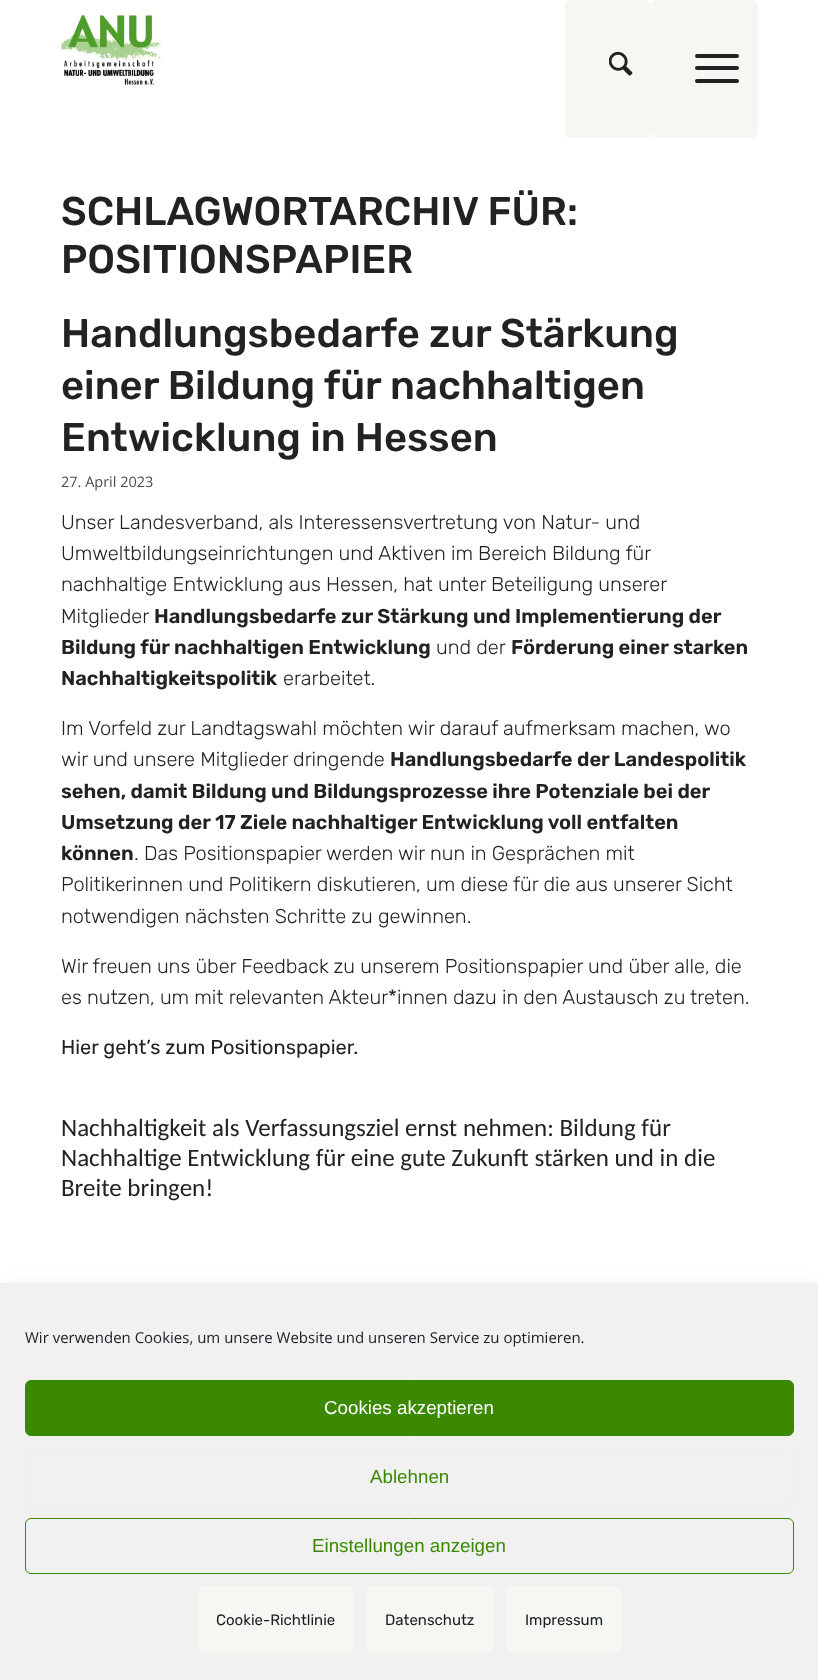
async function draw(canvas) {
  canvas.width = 818;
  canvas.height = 1680;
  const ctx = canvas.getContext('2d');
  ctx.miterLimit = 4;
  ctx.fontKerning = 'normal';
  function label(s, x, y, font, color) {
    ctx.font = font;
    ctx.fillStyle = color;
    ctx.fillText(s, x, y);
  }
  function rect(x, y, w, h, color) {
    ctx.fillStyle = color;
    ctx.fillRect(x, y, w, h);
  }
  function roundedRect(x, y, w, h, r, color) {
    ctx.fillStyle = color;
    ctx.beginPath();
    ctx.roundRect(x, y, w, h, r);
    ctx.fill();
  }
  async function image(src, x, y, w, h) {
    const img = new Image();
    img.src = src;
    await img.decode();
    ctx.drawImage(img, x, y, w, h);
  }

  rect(0, 0, 818, 1680, '#fff');
  await image('assets/img1.png', 61, 15, 100, 70);
  roundedRect(565, 0, 86, 138, 6, '#f5f7f2');
  await image('assets/img2.png', 609, 51, 24, 25);
  roundedRect(651, 0, 107, 138, 6, '#f5f7f2');
  roundedRect(695, 66, 44, 4, 2, '#222');
  roundedRect(695, 54, 44, 4, 2, '#222');
  roundedRect(695, 79, 44, 4, 2, '#222');
  label('SCHLAGWORTARCHIV FÜR:', 61, 225, '300 40px Rubik', '#222');
  label('POSITIONSPAPIER', 61, 273, '300 40px Rubik', '#222');
  label('Handlungsbedarfe zur Stärkung', 61, 347, '300 40px Rubik', '#222');
  label('einer Bildung für nachhaltigen', 61, 399, '300 40px Rubik', '#222');
  label('Entwicklung in Hessen', 61, 451, '300 40px Rubik', '#222');
  label('27. April 2023', 61, 487, '14.5px Open Sans', '#4d4d4d');
  label('Unser Landesverband, als Interessensvertretung von Natur- und', 61, 529, '300 20px "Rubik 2"', '#222');
  label('Umweltbildungseinrichtungen und Aktiven im Bereich Bildung für', 61, 560, '300 20px "Rubik 2"', '#222');
  label('nachhaltige Entwicklung aus Hessen, hat unter Beteiligung unserer', 61, 591, '300 20px "Rubik 2"', '#222');
  label('Mitglieder', 61, 623, '300 20px "Rubik 2"', '#222');
  label('Handlungsbedarfe zur Stärkung und Implementierung der', 154, 623, '600 20px Rubik', '#222');
  label('Bildung für nachhaltigen Entwicklung', 61, 654, '600 20px Rubik', '#222');
  label('und der', 436, 654, '300 20px "Rubik 2"', '#222');
  label('Förderung einer starken', 511, 654, '600 20px Rubik', '#222');
  label('Nachhaltigkeitspolitik', 61, 685, '600 20px Rubik', '#222');
  label('erarbeitet.', 283, 685, '300 20px "Rubik 2"', '#222');
  label('Im Vorfeld zur Landtagswahl möchten wir darauf aufmerksam machen, wo', 61, 735, '300 20px "Rubik 2"', '#222');
  label('wir und unsere Mitglieder dringende', 61, 766, '300 20px "Rubik 2"', '#222');
  label('Handlungsbedarfe der Landespolitik', 390, 766, '600 20px Rubik', '#222');
  label('sehen, damit Bildung und Bildungsprozesse ihre Potenziale bei der', 61, 798, '600 20px Rubik', '#222');
  label('Umsetzung der 17 Ziele nachhaltiger Entwicklung voll entfalten', 61, 829, '600 20px Rubik', '#222');
  label('können', 61, 860, '600 20px Rubik', '#222');
  label('. Das Positionspapier werden wir nun in Gesprächen mit', 134, 860, '300 20px "Rubik 2"', '#222');
  label('Politikerinnen und Politikern diskutieren, um diese für die aus unserer Sicht', 61, 891, '300 20px "Rubik 2"', '#222');
  label('notwendigen nächsten Schritte zu gewinnen.', 61, 923, '300 20px "Rubik 2"', '#222');
  label('Wir freuen uns über Feedback zu unserem Positionspapier und über alle, die', 61, 973, '300 20px "Rubik 2"', '#222');
  label('es nutzen, um mit relevanten Akteur*innen dazu in den Austausch zu treten.', 61, 1004, '300 20px "Rubik 2"', '#222');
  label('Hier geht’s zum Positionspapier.', 61, 1054, '300 20px "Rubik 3"', '#222');
  label('Nachhaltigkeit als Verfassungsziel ernst nehmen: Bildung für', 61, 1136, '25px Carlito', '#222');
  label('Nachhaltige Entwicklung für eine gute Zukunft stärken und in die', 61, 1166, '25px Carlito', '#222');
  label('Breite bringen!', 61, 1196, '25px Carlito', '#222');
  ctx.fillStyle = '#00000030';
  ctx.filter = 'blur(12.5px)';
  ctx.beginPath();
  ctx.rect(0, 1295, 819, 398);
  ctx.fill();
  ctx.filter = 'none';
  rect(0, 1283, 818, 397, '#f1f1f1');
  label('Wir verwenden Cookies, um unsere Website und unseren Service zu optimieren.', 25, 1343, '15px Open Sans', '#191e23');
  ctx.fillStyle = '#3b8900';
  ctx.beginPath();
  ctx.roundRect(25.5, 1380.5, 768, 55, 5.5);
  ctx.fill();
  ctx.strokeStyle = '#3b8900';
  ctx.stroke();
  label('Cookies akzeptieren', 324, 1414, '18.75px Liberation Sans', '#fff');
  ctx.beginPath();
  ctx.roundRect(25.5, 1449.5, 768, 55, 5.5);
  ctx.strokeStyle = '#ededed';
  ctx.stroke();
  label('Ablehnen', 370, 1483, '18.75px Liberation Sans', '#3b8900');
  ctx.beginPath();
  ctx.roundRect(25.5, 1518.5, 768, 55, 5.5);
  ctx.strokeStyle = '#3b8900';
  ctx.stroke();
  label('Einstellungen anzeigen', 312, 1552, '18.75px Liberation Sans', '#3b8900');
  roundedRect(198, 1586, 156, 67, 6, '#f5f7f2');
  label('Cookie-Richtlinie', 216, 1625, '300 15px "Rubik 3"', '#191e23');
  roundedRect(366, 1586, 128, 67, 6, '#f5f7f2');
  label('Datenschutz', 385, 1625, '300 15px "Rubik 3"', '#191e23');
  roundedRect(506, 1586, 115, 67, 6, '#f5f7f2');
  label('Impressum', 525, 1625, '300 15px "Rubik 3"', '#191e23');
}

draw(document.querySelector('canvas'));
